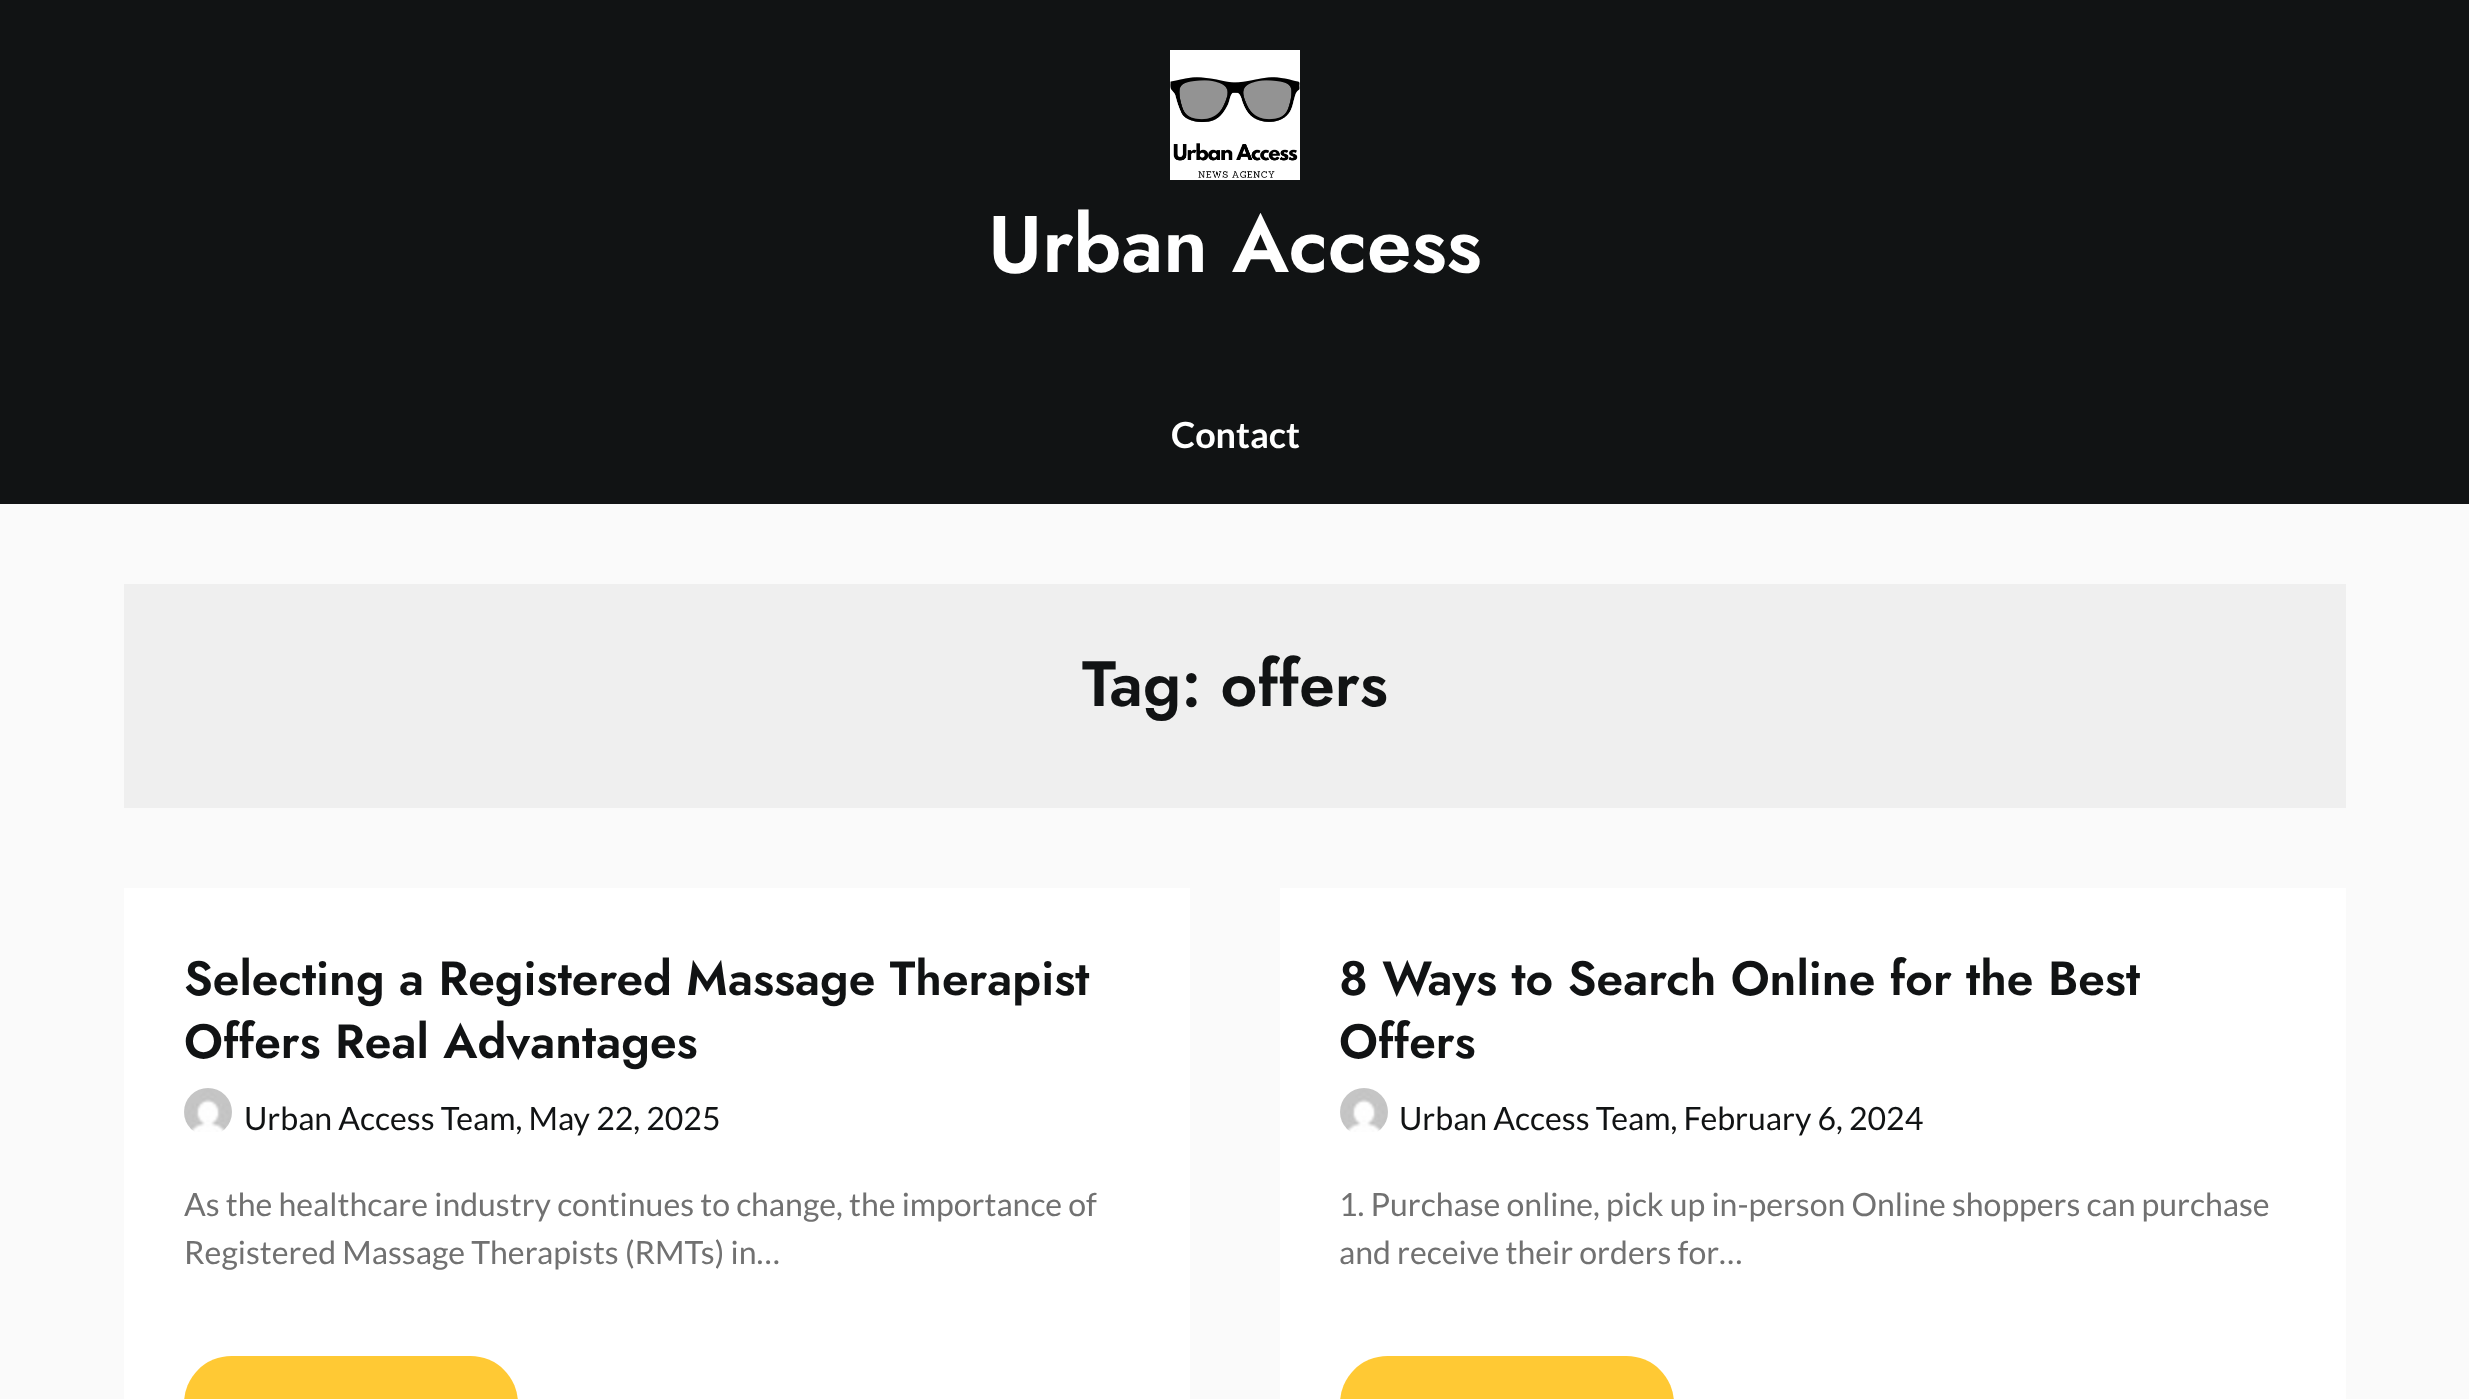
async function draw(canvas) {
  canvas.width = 2469;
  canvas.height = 1399;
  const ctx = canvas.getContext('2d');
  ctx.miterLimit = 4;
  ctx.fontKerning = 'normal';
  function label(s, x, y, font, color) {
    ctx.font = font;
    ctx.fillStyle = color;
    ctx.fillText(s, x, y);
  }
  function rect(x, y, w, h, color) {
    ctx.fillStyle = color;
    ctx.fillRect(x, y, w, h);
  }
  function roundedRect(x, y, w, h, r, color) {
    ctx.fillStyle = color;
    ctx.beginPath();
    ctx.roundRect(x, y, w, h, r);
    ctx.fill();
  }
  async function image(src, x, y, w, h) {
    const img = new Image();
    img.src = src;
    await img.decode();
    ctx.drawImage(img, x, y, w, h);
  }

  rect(0, 0, 2469, 1399, '#fafafa');
  rect(0, 0, 2469, 504, '#111314');
  await image('assets/img1.png', 1170, 50, 130, 130);
  label('Urban Access', 988, 272, '600 80px Jost', '#fff');
  label('Contact', 1171, 448, 'bold 36px Lato', '#fff');
  rect(124, 584, 2222, 224, '#efefef');
  label('Tag: offers', 1082, 706, '600 64px Jost', '#111314');
  rect(124, 888, 1066, 511, '#fff');
  label('Selecting a Registered Massage Therapist', 184, 995, '600 48px Jost', '#111314');
  label('Offers Real Advantages', 184, 1058, '600 48px Jost', '#111314');
  await image('assets/img2.png', 184, 1088, 48, 44);
  label('Urban Access Team, May 22, 2025', 244, 1130, '32px Lato', '#111314');
  label('As the healthcare industry continues to change, the importance of', 184, 1216, '32px Lato', '#717171');
  label('Registered Massage Therapists (RMTs) in…', 184, 1264, '32px Lato', '#717171');
  roundedRect(184, 1356, 334, 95, 52, '#ffc934');
  rect(1280, 888, 1066, 511, '#fff');
  label('8 Ways to Search Online for the Best', 1339, 995, '600 48px Jost', '#111314');
  label('Offers', 1339, 1058, '600 48px Jost', '#111314');
  await image('assets/img2.png', 1340, 1088, 48, 44);
  label('Urban Access Team, February 6, 2024', 1399, 1130, '32px Lato', '#111314');
  label('1. Purchase online, pick up in-person Online shoppers can purchase', 1339, 1216, '32px Lato', '#717171');
  label('and receive their orders for…', 1339, 1264, '32px Lato', '#717171');
  roundedRect(1340, 1356, 334, 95, 52, '#ffc934');
}

draw(document.querySelector('canvas'));
